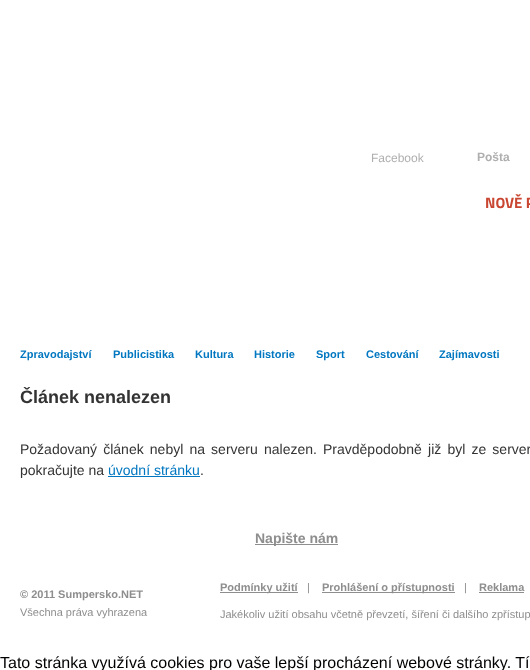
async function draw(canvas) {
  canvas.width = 530;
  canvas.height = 670;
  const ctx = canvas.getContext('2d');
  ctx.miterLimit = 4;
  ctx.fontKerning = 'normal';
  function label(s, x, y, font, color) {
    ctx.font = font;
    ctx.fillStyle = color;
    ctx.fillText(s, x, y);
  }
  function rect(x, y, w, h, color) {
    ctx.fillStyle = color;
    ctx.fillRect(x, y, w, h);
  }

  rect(0, 0, 530, 670, '#fff');
  label('Facebook', 371, 162, '12px Liberation Sans', '#afafaf');
  label('Pošta', 477, 161, 'bold 12px Liberation Sans', '#afafaf');
  label('NOVĚ P', 485, 208, 'bold 15px Titillium Web', '#c94732');
  label('Zpravodajství', 20, 358, 'bold 11px Liberation Sans', '#0077c0');
  label('Publicistika', 113, 358, 'bold 11px Liberation Sans', '#0077c0');
  label('Kultura', 195, 358, 'bold 11px Liberation Sans', '#0077c0');
  label('Historie', 254, 358, 'bold 11px Liberation Sans', '#0077c0');
  label('Sport', 316, 358, 'bold 11px Liberation Sans', '#0077c0');
  label('Cestování', 366, 358, 'bold 11px Liberation Sans', '#0077c0');
  label('Zajímavosti', 439, 358, 'bold 11px Liberation Sans', '#0077c0');
  label('Článek nenalezen', 20, 403, 'bold 18px Liberation Sans', '#333');
  ctx.wordSpacing = '2.25px';
  label('Požadovaný článek nebyl na serveru nalezen. Pravděpodobně již byl ze server', 20, 454, '14px Liberation Sans', '#333');
  ctx.wordSpacing = '0px';
  label('pokračujte na', 20, 475, '14px Liberation Sans', '#333');
  label('úvodní stránku', 108, 475, '14px Liberation Sans', '#0077c0');
  rect(108, 476, 92, 1, '#0077c0');
  label('.', 200, 475, '14px Liberation Sans', '#333');
  label('© 2011 Sumpersko.NET', 20, 598, 'bold 11px Liberation Sans', '#8e8e8e');
  label('Všechna práva vyhrazena', 20, 616, '11px Liberation Sans', '#8e8e8e');
  rect(255, 544, 83, 1, '#8e8e8e');
  label('Napište nám', 255, 543, 'bold 14px Liberation Sans', '#8e8e8e');
  rect(220, 592, 78, 1, '#8e8e8e');
  label('Podmínky užití', 220, 591, 'bold 11px Liberation Sans', '#8e8e8e');
  label('|', 307, 591, '11px Liberation Sans', '#8e8e8e');
  rect(322, 592, 133, 1, '#8e8e8e');
  label('Prohlášení o přístupnosti', 322, 591, 'bold 11px Liberation Sans', '#8e8e8e');
  label('|', 464, 591, '11px Liberation Sans', '#8e8e8e');
  label('Reklama', 479, 591, 'bold 11px Liberation Sans', '#8e8e8e');
  rect(479, 592, 45, 1, '#8e8e8e');
  label('Jakékoliv užití obsahu včetně převzetí, šíření či dalšího zpřístup', 220, 618, '11px Liberation Sans', '#8e8e8e');
  label('Tato stránka využívá cookies pro vaše lepší procházení webové stránky. Tí', 0, 668, '16px Liberation Sans', '#000');
}

draw(document.querySelector('canvas'));
